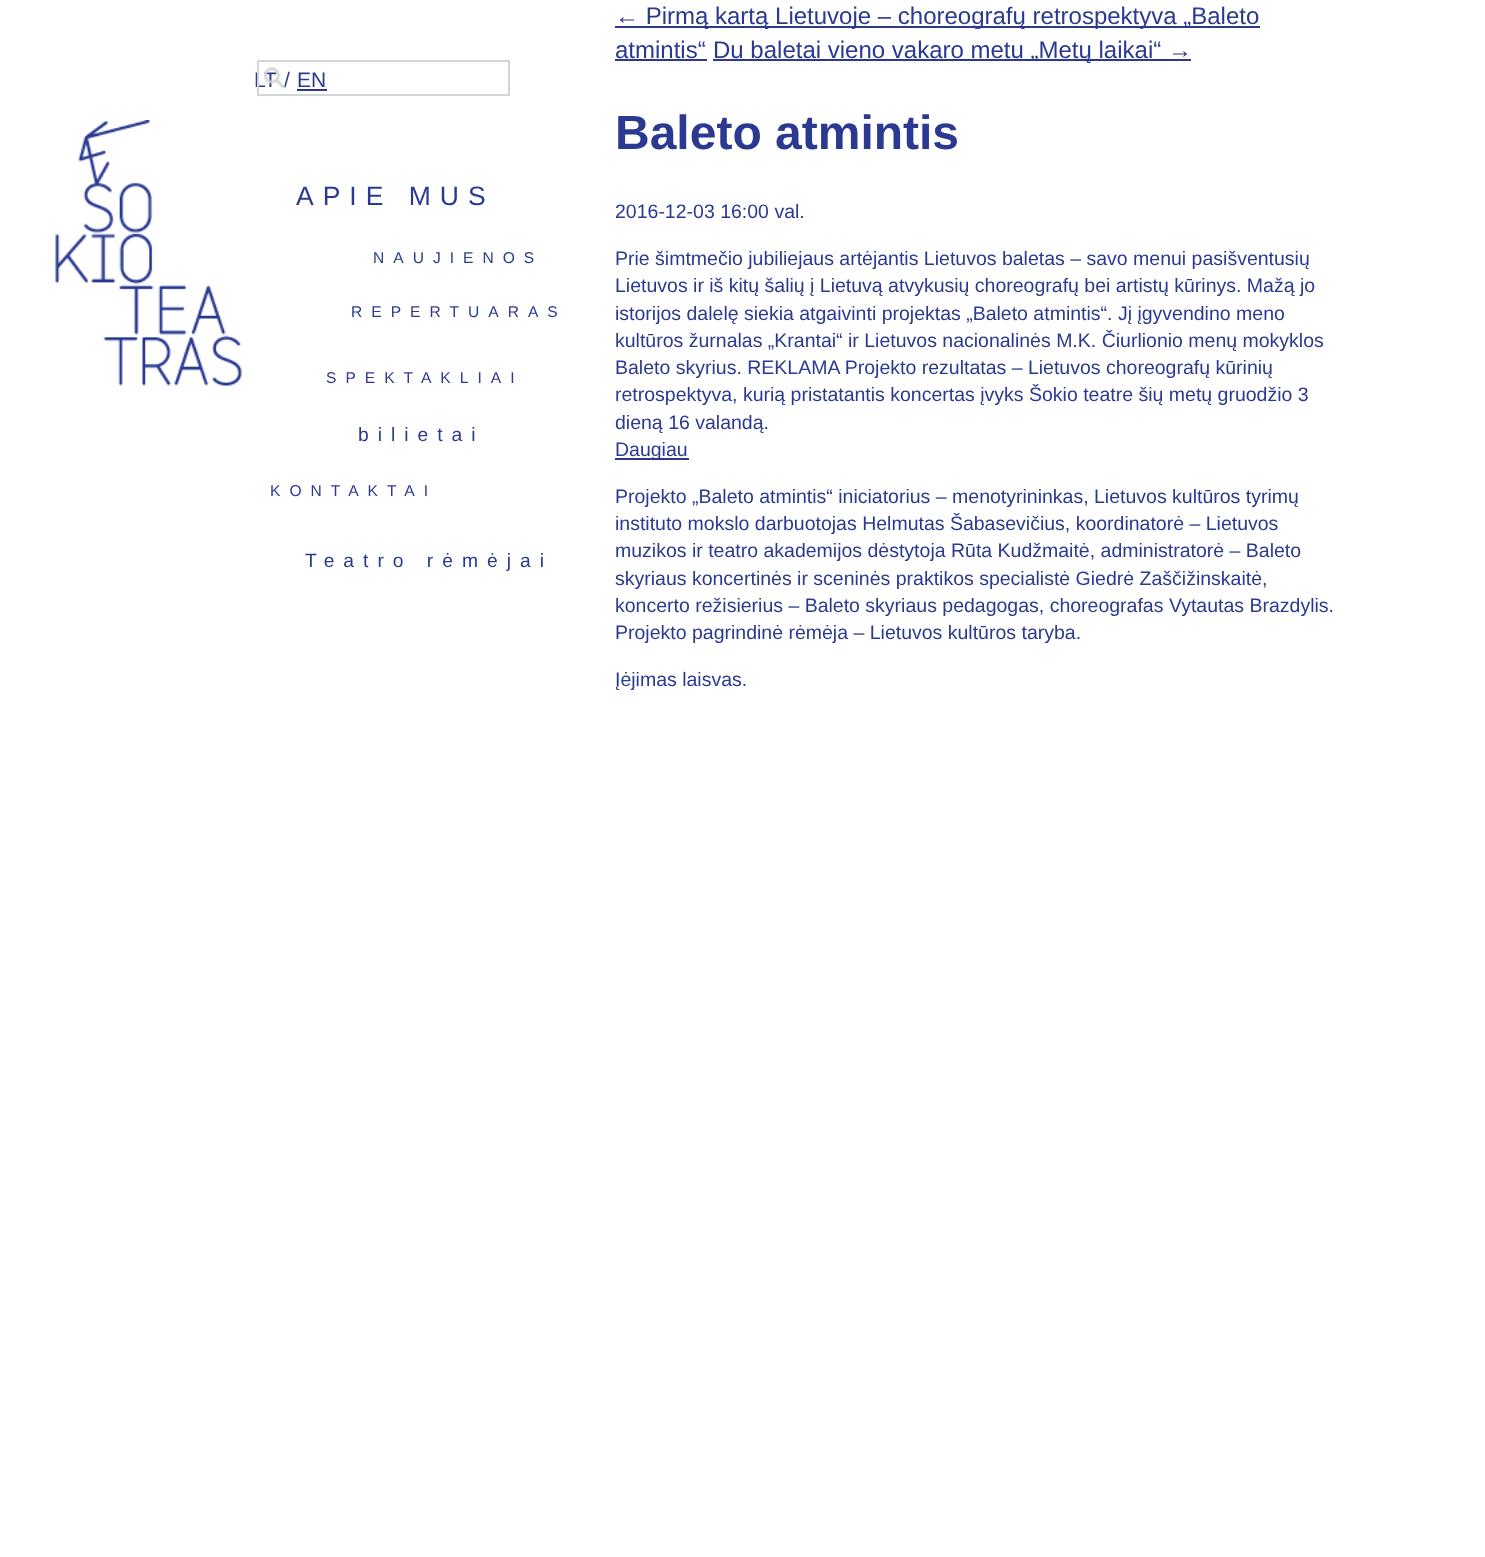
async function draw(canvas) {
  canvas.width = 1485;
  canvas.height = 1557;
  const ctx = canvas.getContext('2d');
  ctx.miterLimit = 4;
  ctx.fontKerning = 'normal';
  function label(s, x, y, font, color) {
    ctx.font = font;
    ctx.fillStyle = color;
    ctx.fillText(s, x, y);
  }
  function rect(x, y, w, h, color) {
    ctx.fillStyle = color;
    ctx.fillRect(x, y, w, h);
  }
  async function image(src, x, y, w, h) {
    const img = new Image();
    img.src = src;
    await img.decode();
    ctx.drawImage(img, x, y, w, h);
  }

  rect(0, 0, 1485, 1557, '#fff');
  await image('assets/img1.png', 55, 120, 187, 266);
  label('LT', 254, 87, '21px Liberation Sans', '#2b3990');
  label('/', 284, 87, '21px Liberation Sans', '#2b3990');
  await image('assets/img2.png', 263, 67, 23, 22);
  rect(297, 89, 30, 2, '#2b3990');
  ctx.strokeStyle = '#d3d4d5';
  ctx.lineWidth = 2;
  ctx.strokeRect(258, 61, 251, 34);
  label('EN', 297, 87, '21px Liberation Sans', '#2b3990');
  ctx.letterSpacing = '9px';
  label('APIE MUS', 296, 205, '26.5px Liberation Sans', '#2b3990');
  label('NAUJIENOS', 373, 263, '15.6px Liberation Sans', '#2b3990');
  label('REPERTUARAS', 351, 317, '15.6px Liberation Sans', '#2b3990');
  label('SPEKTAKLIAI', 326, 383, '15.6px Liberation Sans', '#2b3990');
  label('bilietai', 358, 441, '19.25px Liberation Sans', '#2b3990');
  label('KONTAKTAI', 270, 496, '15.6px Liberation Sans', '#2b3990');
  label('Teatro rėmėjai', 305, 567, '19.25px Liberation Sans', '#2b3990');
  rect(615, 26, 645, 2, '#2b3990');
  ctx.letterSpacing = '0px';
  label('← Pirmą kartą Lietuvoje – choreografų retrospektyva „Baleto', 615, 24, '24px Liberation Sans', '#2b3990');
  label('atmintis“', 615, 58, '24px Liberation Sans', '#2b3990');
  rect(615, 59, 92, 2, '#2b3990');
  rect(713, 59, 478, 2, '#2b3990');
  label('Du baletai vieno vakaro metu „Metų laikai“ →', 713, 58, '24px Liberation Sans', '#2b3990');
  label('Baleto atmintis', 615, 149, 'bold 48px Liberation Sans', '#2b3990');
  label('2016-12-03 16:00 val.', 615, 218, '19.5px Liberation Sans', '#2b3990');
  label('Prie šimtmečio jubiliejaus artėjantis Lietuvos baletas – savo menui pasišventusių', 615, 265, '19.5px Liberation Sans', '#2b3990');
  label('Lietuvos ir iš kitų šalių į Lietuvą atvykusių choreografų bei artistų kūrinys. Mažą jo', 615, 292, '19.5px Liberation Sans', '#2b3990');
  label('istorijos dalelę siekia atgaivinti projektas „Baleto atmintis“. Jį įgyvendino meno', 615, 320, '19.5px Liberation Sans', '#2b3990');
  label('kultūros žurnalas „Krantai“ ir Lietuvos nacionalinės M.K. Čiurlionio menų mokyklos', 615, 347, '19.5px Liberation Sans', '#2b3990');
  label('Baleto skyrius. REKLAMA Projekto rezultatas – Lietuvos choreografų kūrinių', 615, 374, '19.5px Liberation Sans', '#2b3990');
  label('retrospektyva, kurią pristatantis koncertas įvyks Šokio teatre šių metų gruodžio 3', 615, 401, '19.5px Liberation Sans', '#2b3990');
  label('dieną 16 valandą.', 615, 429, '19.5px Liberation Sans', '#2b3990');
  rect(615, 458, 74, 2, '#2b3990');
  label('Daugiau', 615, 456, '19.5px Liberation Sans', '#2b3990');
  label('Projekto „Baleto atmintis“ iniciatorius – menotyrininkas, Lietuvos kultūros tyrimų', 615, 503, '19.5px Liberation Sans', '#2b3990');
  label('instituto mokslo darbuotojas Helmutas Šabasevičius, koordinatorė – Lietuvos', 615, 530, '19.5px Liberation Sans', '#2b3990');
  label('muzikos ir teatro akademijos dėstytoja Rūta Kudžmaitė, administratorė – Baleto', 615, 557, '19.5px Liberation Sans', '#2b3990');
  label('skyriaus koncertinės ir sceninės praktikos specialistė Giedrė Zaščižinskaitė,', 615, 585, '19.5px Liberation Sans', '#2b3990');
  label('koncerto režisierius – Baleto skyriaus pedagogas, choreografas Vytautas Brazdylis.', 615, 612, '19.5px Liberation Sans', '#2b3990');
  label('Projekto pagrindinė rėmėja – Lietuvos kultūros taryba.', 615, 639, '19.5px Liberation Sans', '#2b3990');
  label('Įėjimas laisvas.', 615, 686, '19.5px Liberation Sans', '#2b3990');
}

draw(document.querySelector('canvas'));
